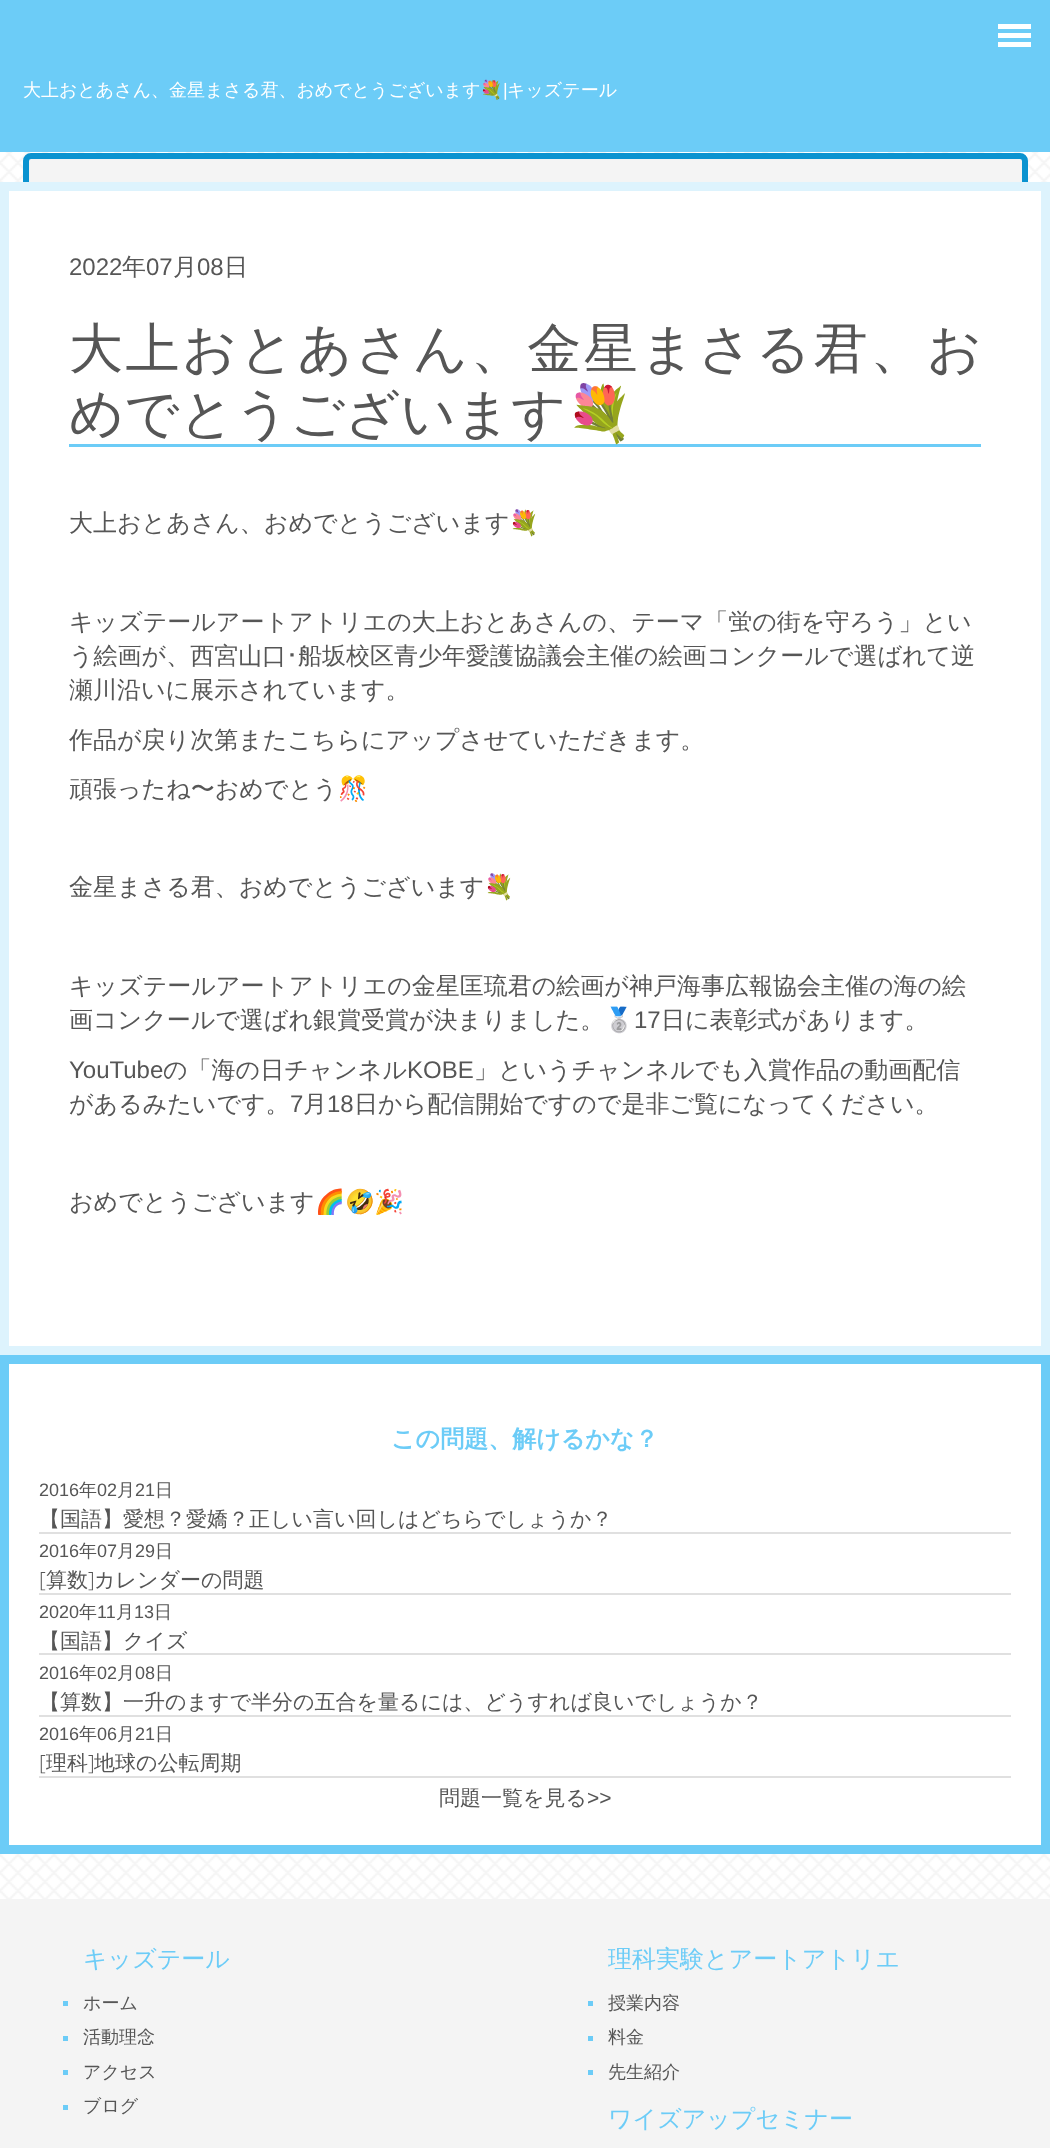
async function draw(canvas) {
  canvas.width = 1050;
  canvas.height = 2148;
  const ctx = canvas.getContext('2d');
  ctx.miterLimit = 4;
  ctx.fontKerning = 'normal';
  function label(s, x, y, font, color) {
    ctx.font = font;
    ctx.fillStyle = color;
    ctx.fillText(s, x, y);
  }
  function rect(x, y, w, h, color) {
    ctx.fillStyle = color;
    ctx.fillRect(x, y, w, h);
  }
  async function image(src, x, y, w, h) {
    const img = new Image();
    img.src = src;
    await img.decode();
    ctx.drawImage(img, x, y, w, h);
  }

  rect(0, 0, 1050, 2148, '#fff');
  await image('assets/img1.png', 0, 152, 1050, 1747);
  rect(0, 0, 1050, 152, '#6cccf7');
  rect(998, 24, 33, 5, '#fff');
  rect(998, 33, 33, 5, '#fff');
  rect(998, 42, 33, 5, '#fff');
  label('大上おとあさん、金星まさる君、おめでとうございます', 23, 96, '500 18px WenQuanYi Zen Hei', '#fff');
  label('💐', 480, 96, '18px Noto Color Emoji', '#fff');
  label('|', 503, 96, '18px Liberation Sans', '#fff');
  label('キッズテール', 507, 96, '500 18px WenQuanYi Zen Hei', '#fff');
  ctx.fillStyle = '#f4f4f4';
  ctx.beginPath();
  ctx.roundRect(26, 156, 999, 54, 5);
  ctx.fill();
  ctx.strokeStyle = '#0b93d0';
  ctx.lineWidth = 6;
  ctx.stroke();
  ctx.fillStyle = '#fff';
  ctx.beginPath();
  ctx.rect(4.5, 186.5, 1041, 1164);
  ctx.fill();
  ctx.strokeStyle = '#ddf3fd';
  ctx.lineWidth = 9;
  ctx.stroke();
  label('2022', 69, 275, '24px Liberation Sans', '#565656');
  label('年', 122, 275, '500 24px WenQuanYi Zen Hei', '#565656');
  label('07', 146, 275, '24px Liberation Sans', '#565656');
  label('月', 173, 275, '500 24px WenQuanYi Zen Hei', '#565656');
  label('08', 197, 275, '24px Liberation Sans', '#565656');
  label('日', 224, 275, '500 24px WenQuanYi Zen Hei', '#565656');
  rect(69, 444, 912, 3, '#6cccf7');
  ctx.letterSpacing = '2.5px';
  label('大上おとあさん、金星まさる君、お', 69, 367, '500 54px WenQuanYi Zen Hei', '#565656');
  ctx.letterSpacing = '0px';
  label('めでとうございます', 69, 432, '500 54px WenQuanYi Zen Hei', '#565656');
  label('💐', 566, 432, '54px Noto Color Emoji', '#565656');
  label('大上おとあさん、おめでとうございます', 69, 531, '500 24px WenQuanYi Zen Hei', '#565656');
  label('💐', 509, 531, '24px Noto Color Emoji', '#565656');
  label('キッズテールアートアトリエの大上おとあさんの、テーマ「蛍の街を守ろう」とい', 69, 630, '500 24px WenQuanYi Zen Hei', '#565656');
  label('う絵画が、西宮山口', 69, 664, '500 24px WenQuanYi Zen Hei', '#565656');
  label('･', 286, 664, '24px IPAPGothic', '#565656');
  label('船坂校区青少年愛護協議会主催の絵画コンクールで選ばれて逆', 298, 664, '500 24px WenQuanYi Zen Hei', '#565656');
  label('瀬川沿いに展示されています。', 69, 698, '500 24px WenQuanYi Zen Hei', '#565656');
  label('作品が戻り次第またこちらにアップさせていただきます。', 69, 748, '500 24px WenQuanYi Zen Hei', '#565656');
  label('頑張ったね〜おめでとう', 69, 797, '500 24px WenQuanYi Zen Hei', '#565656');
  label('🎊', 338, 797, '24px Noto Color Emoji', '#565656');
  label('金星まさる君、おめでとうございます', 69, 895, '500 24px WenQuanYi Zen Hei', '#565656');
  label('💐', 484, 895, '24px Noto Color Emoji', '#565656');
  label('キッズテールアートアトリエの金星匡琉君の絵画が神戸海事広報協会主催の海の絵', 69, 994, '500 24px WenQuanYi Zen Hei', '#565656');
  label('画コンクールで選ばれ銀賞受賞が決まりました。', 69, 1028, '500 24px WenQuanYi Zen Hei', '#565656');
  label('🥈', 604, 1028, '24px Noto Color Emoji', '#565656');
  label('17', 634, 1028, '24px Liberation Sans', '#565656');
  label('日に表彰式があります。', 661, 1028, '500 24px WenQuanYi Zen Hei', '#565656');
  label('YouTube', 69, 1078, '24px Liberation Sans', '#565656');
  label('の「海の日チャンネル', 163, 1078, '500 24px WenQuanYi Zen Hei', '#565656');
  label('KOBE', 407, 1078, '24px Liberation Sans', '#565656');
  label('」というチャンネルでも入賞作品の動画配信', 474, 1078, '500 24px WenQuanYi Zen Hei', '#565656');
  label('があるみたいです。', 69, 1112, '500 24px WenQuanYi Zen Hei', '#565656');
  label('7', 290, 1112, '24px Liberation Sans', '#565656');
  label('月', 303, 1112, '500 24px WenQuanYi Zen Hei', '#565656');
  label('18', 327, 1112, '24px Liberation Sans', '#565656');
  label('日から配信開始ですので是非ご覧になってください。', 354, 1112, '500 24px WenQuanYi Zen Hei', '#565656');
  label('おめでとうございます', 69, 1210, '500 24px WenQuanYi Zen Hei', '#565656');
  label('🌈🤣🎉', 315, 1210, '24px Noto Color Emoji', '#565656');
  ctx.fillStyle = '#fff';
  ctx.beginPath();
  ctx.rect(4.5, 1359.5, 1041, 490);
  ctx.fill();
  ctx.strokeStyle = '#6cccf7';
  ctx.stroke();
  label('この問題、解けるかな？', 391, 1447, 'bold 24px WenQuanYi Zen Hei', '#6cccf7');
  label('2016', 39, 1496, '18px Liberation Sans', '#565656');
  label('年', 79, 1496, '500 18px WenQuanYi Zen Hei', '#565656');
  label('02', 97, 1496, '18px Liberation Sans', '#565656');
  label('月', 117, 1496, '500 18px WenQuanYi Zen Hei', '#565656');
  label('21', 135, 1496, '18px Liberation Sans', '#565656');
  label('日', 155, 1496, '500 18px WenQuanYi Zen Hei', '#565656');
  rect(39, 1532, 972, 2, '#e0e0e0');
  label('【国語】愛想？愛嬌？正しい言い回しはどちらでしょうか？', 39, 1526, '500 21px WenQuanYi Zen Hei', '#565656');
  label('2016', 39, 1557, '18px Liberation Sans', '#565656');
  label('年', 79, 1557, '500 18px WenQuanYi Zen Hei', '#565656');
  label('07', 97, 1557, '18px Liberation Sans', '#565656');
  label('月', 117, 1557, '500 18px WenQuanYi Zen Hei', '#565656');
  label('29', 135, 1557, '18px Liberation Sans', '#565656');
  label('日', 155, 1557, '500 18px WenQuanYi Zen Hei', '#565656');
  rect(39, 1593, 972, 2, '#e0e0e0');
  label('[', 39, 1587, '300 21px Open Sans', '#565656');
  label('算数', 46, 1587, '500 21px WenQuanYi Zen Hei', '#565656');
  label(']', 88, 1587, '300 21px Open Sans', '#565656');
  label('カレンダーの問題', 94, 1587, '500 21px WenQuanYi Zen Hei', '#565656');
  label('2020', 39, 1618, '18px Liberation Sans', '#565656');
  label('年', 79, 1618, '500 18px WenQuanYi Zen Hei', '#565656');
  label('11', 97, 1618, '18px Liberation Sans', '#565656');
  label('月', 116, 1618, '500 18px WenQuanYi Zen Hei', '#565656');
  label('13', 134, 1618, '18px Liberation Sans', '#565656');
  label('日', 154, 1618, '500 18px WenQuanYi Zen Hei', '#565656');
  rect(39, 1653, 972, 2, '#e0e0e0');
  label('【国語】クイズ', 39, 1648, '500 21px WenQuanYi Zen Hei', '#565656');
  label('2016', 39, 1679, '18px Liberation Sans', '#565656');
  label('年', 79, 1679, '500 18px WenQuanYi Zen Hei', '#565656');
  label('02', 97, 1679, '18px Liberation Sans', '#565656');
  label('月', 117, 1679, '500 18px WenQuanYi Zen Hei', '#565656');
  label('08', 135, 1679, '18px Liberation Sans', '#565656');
  label('日', 155, 1679, '500 18px WenQuanYi Zen Hei', '#565656');
  rect(39, 1715, 972, 2, '#e0e0e0');
  label('【算数】一升のますで半分の五合を量るには、どうすれば良いでしょうか？', 39, 1709, '500 21px WenQuanYi Zen Hei', '#565656');
  label('2016', 39, 1740, '18px Liberation Sans', '#565656');
  label('年', 79, 1740, '500 18px WenQuanYi Zen Hei', '#565656');
  label('06', 97, 1740, '18px Liberation Sans', '#565656');
  label('月', 117, 1740, '500 18px WenQuanYi Zen Hei', '#565656');
  label('21', 135, 1740, '18px Liberation Sans', '#565656');
  label('日', 155, 1740, '500 18px WenQuanYi Zen Hei', '#565656');
  rect(39, 1776, 972, 2, '#e0e0e0');
  label('[', 39, 1770, '300 21px Open Sans', '#565656');
  label('理科', 46, 1770, '500 21px WenQuanYi Zen Hei', '#565656');
  label(']', 88, 1770, '300 21px Open Sans', '#565656');
  label('地球の公転周期', 94, 1770, '500 21px WenQuanYi Zen Hei', '#565656');
  label('問題一覧を見る', 439, 1805, '500 21px WenQuanYi Zen Hei', '#565656');
  label('>>', 587, 1805, '21px Liberation Sans', '#565656');
  rect(0, 1899, 1050, 249, '#f4f4f4');
  label('キッズテール', 83, 1967, '500 24px WenQuanYi Zen Hei', '#6cccf7');
  rect(63, 2001, 5, 5, '#6cccf7');
  label('ホーム', 83, 2009, '500 18px WenQuanYi Zen Hei', '#565656');
  rect(63, 2036, 5, 5, '#6cccf7');
  label('活動理念', 83, 2043, '500 18px WenQuanYi Zen Hei', '#565656');
  rect(63, 2070, 5, 5, '#6cccf7');
  label('アクセス', 83, 2078, '500 18px WenQuanYi Zen Hei', '#565656');
  rect(63, 2105, 5, 5, '#6cccf7');
  label('ブログ', 83, 2112, '500 18px WenQuanYi Zen Hei', '#565656');
  label('理科実験とアートアトリエ', 608, 1967, '500 24px WenQuanYi Zen Hei', '#6cccf7');
  rect(588, 2001, 5, 5, '#6cccf7');
  label('授業内容', 608, 2009, '500 18px WenQuanYi Zen Hei', '#565656');
  rect(588, 2036, 5, 5, '#6cccf7');
  label('料金', 608, 2043, '500 18px WenQuanYi Zen Hei', '#565656');
  rect(588, 2070, 5, 5, '#6cccf7');
  label('先生紹介', 608, 2078, '500 18px WenQuanYi Zen Hei', '#565656');
  label('ワイズアップセミナー', 608, 2127, '500 24px WenQuanYi Zen Hei', '#6cccf7');
}

draw(document.querySelector('canvas'));
